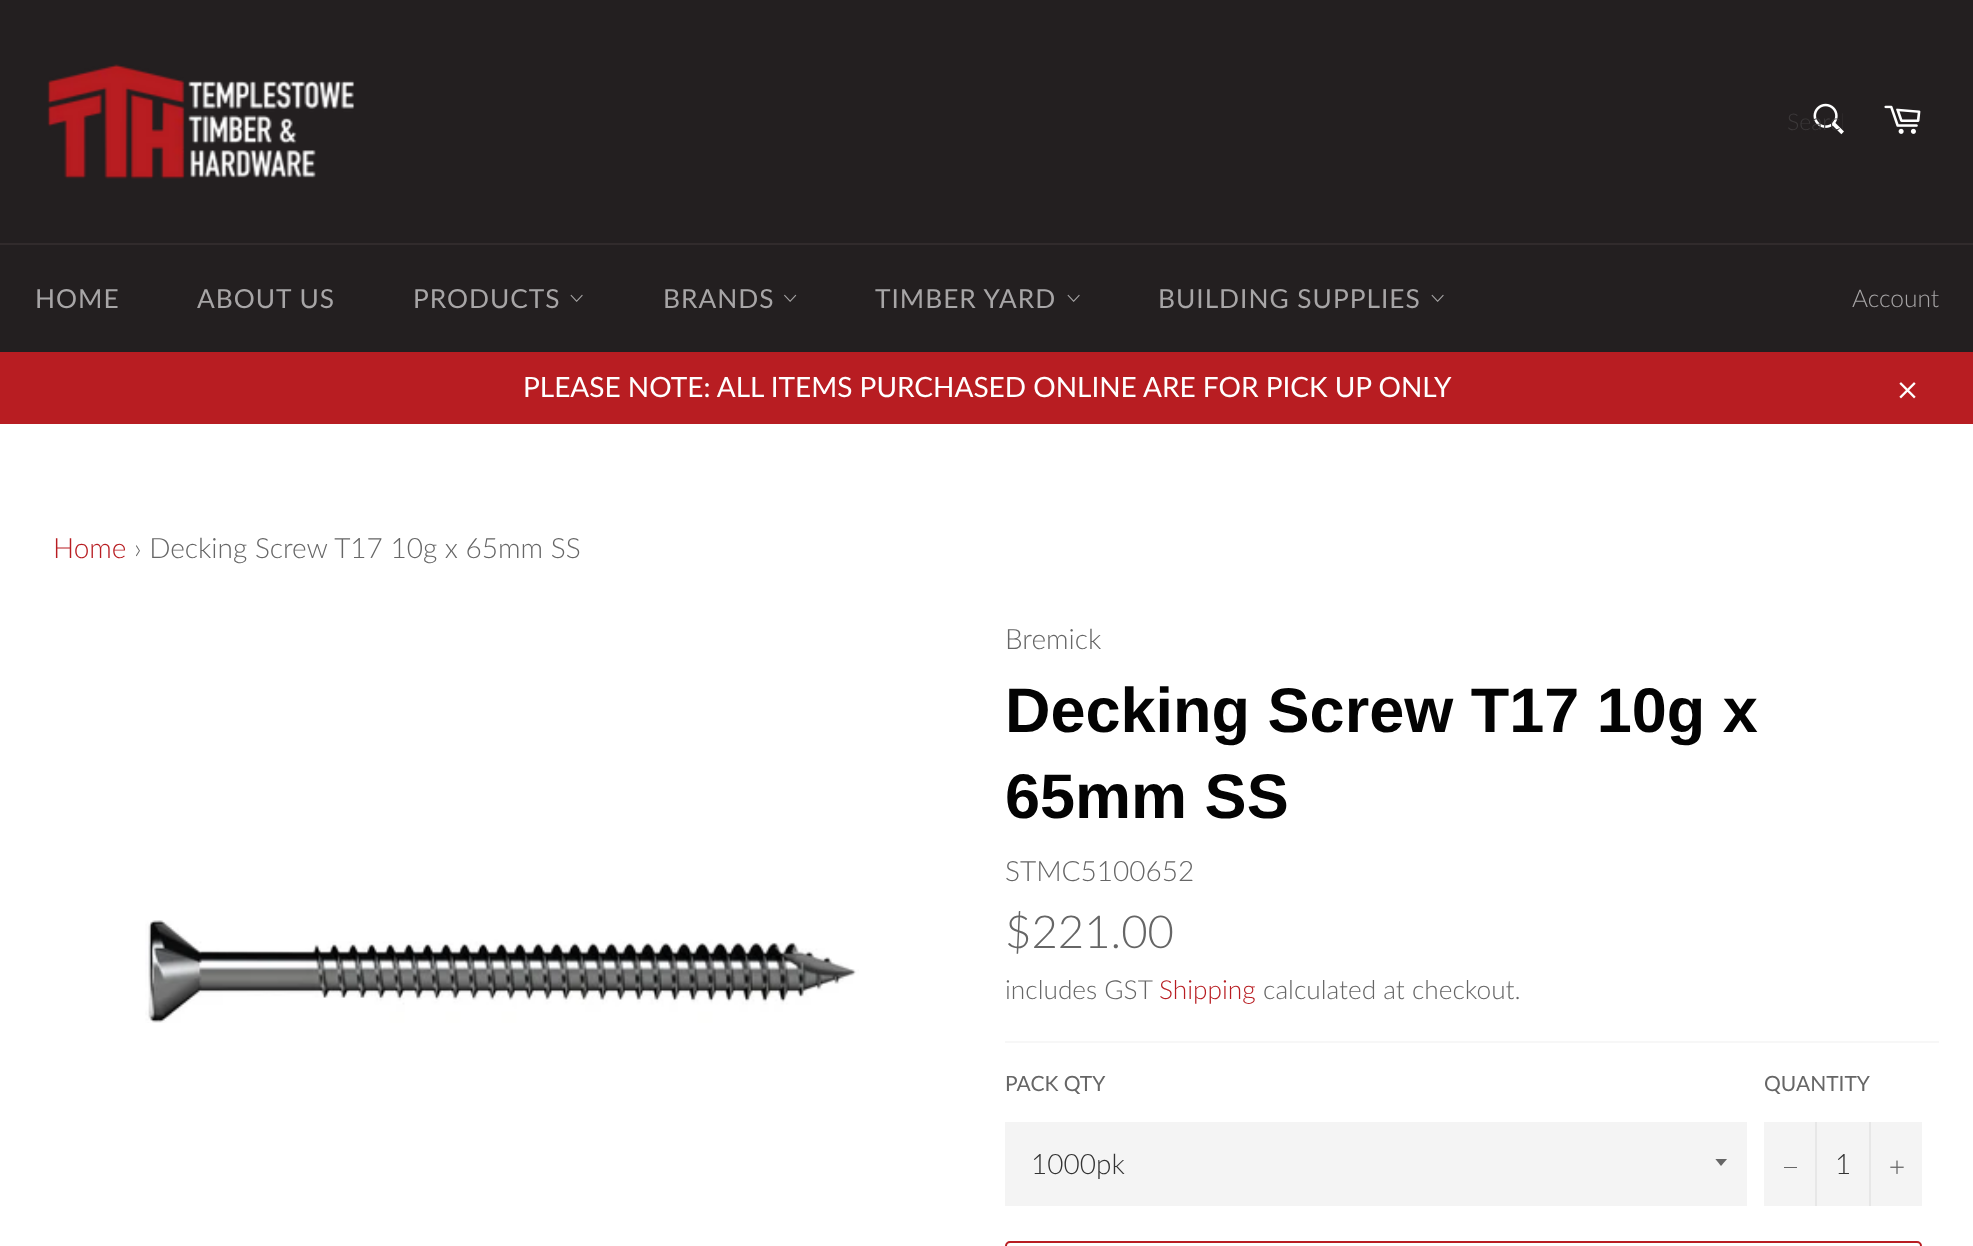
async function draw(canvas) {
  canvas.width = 1973;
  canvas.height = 1246;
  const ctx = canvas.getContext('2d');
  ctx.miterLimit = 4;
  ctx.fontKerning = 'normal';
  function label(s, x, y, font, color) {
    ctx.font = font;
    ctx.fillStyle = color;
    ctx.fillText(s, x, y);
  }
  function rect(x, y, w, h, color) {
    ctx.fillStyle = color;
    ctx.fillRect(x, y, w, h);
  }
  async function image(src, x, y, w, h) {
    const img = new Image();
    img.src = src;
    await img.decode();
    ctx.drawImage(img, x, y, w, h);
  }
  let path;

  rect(0, 0, 1973, 1246, '#231f20');
  await image('assets/img1.png', 47, 64, 308, 115);
  await image('assets/img2.png', 1813, 103, 31, 32);
  ctx.save();
  ctx.beginPath();
  ctx.rect(1787, 109, 56, 28);
  ctx.clip();
  label('Search', 1787, 130, '300 23px Lato', '#3c393a');
  ctx.restore();
  await image('assets/img3.png', 1884, 105, 37, 29);
  rect(0, 243, 1973, 2, '#312b2c');
  ctx.letterSpacing = '1px';
  label('HOME', 35, 308, '26.25px Lato', '#a7a5a6');
  label('ABOUT US', 197, 308, '26.25px Lato', '#a7a5a6');
  label('PRODUCTS', 413, 308, '26.25px Lato', '#a7a5a6');
  await image('assets/img4.png', 570, 294, 13, 8);
  label('BRANDS', 663, 308, '26.25px Lato', '#a7a5a6');
  await image('assets/img5.png', 784, 294, 13, 8);
  label('TIMBER YARD', 875, 308, '26.25px Lato', '#a7a5a6');
  await image('assets/img4.png', 1067, 294, 13, 8);
  label('BUILDING SUPPLIES', 1158, 308, '26.25px Lato', '#a7a5a6');
  await image('assets/img4.png', 1431, 294, 13, 8);
  ctx.letterSpacing = '0px';
  label('Account', 1852, 307, '300 24.5px Lato', '#a7a5a6');
  rect(0, 352, 1973, 72, '#b81d22');
  label('PLEASE NOTE: ALL ITEMS PURCHASED ONLINE ARE FOR PICK UP ONLY', 523, 397, '28px Lato', '#fff');
  await image('assets/img6.png', 1899, 382, 17, 17);
  rect(0, 424, 1973, 822, '#fff');
  label('Home', 53, 558, '300 28px Lato', '#b81d22');
  label('› Decking Screw T17 10g x 65mm SS', 134, 558, '300 28px Lato', '#666');
  await image('assets/img7.png', 145, 920, 714, 103);
  label('Bremick', 1005, 649, '300 28px Lato', '#666');
  label('Decking Screw T17 10g x', 1005, 732, 'bold 63px Arimo', '#030303');
  label('65mm SS', 1005, 818, 'bold 63px Arimo', '#030303');
  label('STMC5100652', 1005, 881, '300 28px Lato', '#666');
  label('$221.00', 1005, 948, '300 45.5px Lato', '#666');
  label('includes GST', 1005, 999, '300 26.25px Lato', '#666');
  label('Shipping', 1159, 999, '300 26.25px Lato', '#b81d22');
  label('calculated at checkout.', 1263, 999, '300 26.25px Lato', '#666');
  rect(1005, 1041, 934, 2, '#f7f7f7');
  label('PACK QTY', 1005, 1091, '21px Lato', '#666');
  rect(1005, 1122, 742, 84, '#f4f4f4');
  ctx.save();
  ctx.beginPath();
  ctx.rect(1715, 1159, 14, 8);
  ctx.clip();
  ctx.fillStyle = '#666';
  path = new Path2D('M1715 1158.5L1721 1166L1727.5 1158.5Z');
  ctx.fill(path);
  ctx.restore();
  label('1000pk', 1031, 1174, '300 28px Lato', '#333');
  label('QUANTITY', 1764, 1091, '21px Lato', '#666');
  rect(1764, 1122, 158, 84, '#f4f4f4');
  rect(1815, 1122, 2, 84, '#e7e7e7');
  rect(1784, 1167, 13, 1, '#666');
  label('1', 1835, 1174, '300 28px Lato', '#333');
  rect(1869, 1122, 2, 84, '#e7e7e7');
  await image('assets/img8.png', 1890, 1160, 14, 14);
  ctx.beginPath();
  ctx.roundRect(1006, 1242, 915, 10, 4);
  ctx.strokeStyle = '#b81d22';
  ctx.lineWidth = 2;
  ctx.stroke();
}

draw(document.querySelector('canvas'));
